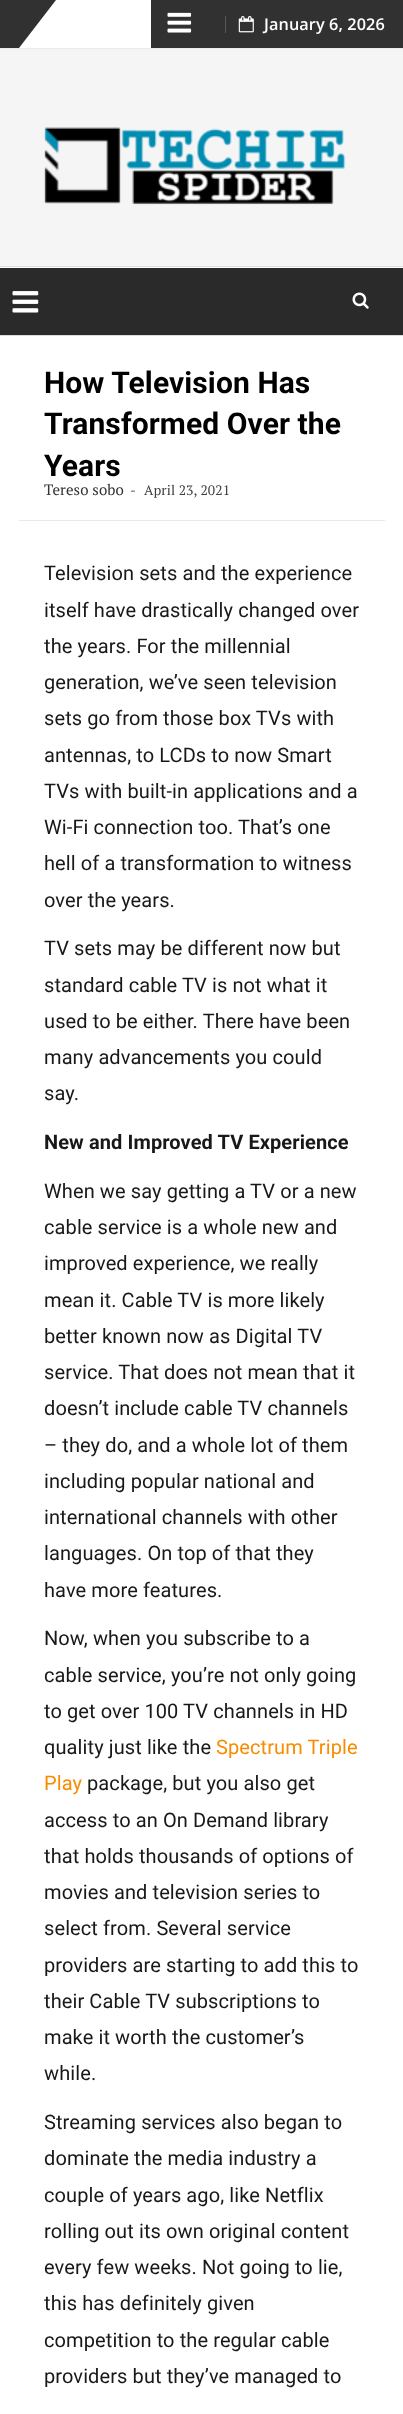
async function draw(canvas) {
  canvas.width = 403;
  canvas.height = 2414;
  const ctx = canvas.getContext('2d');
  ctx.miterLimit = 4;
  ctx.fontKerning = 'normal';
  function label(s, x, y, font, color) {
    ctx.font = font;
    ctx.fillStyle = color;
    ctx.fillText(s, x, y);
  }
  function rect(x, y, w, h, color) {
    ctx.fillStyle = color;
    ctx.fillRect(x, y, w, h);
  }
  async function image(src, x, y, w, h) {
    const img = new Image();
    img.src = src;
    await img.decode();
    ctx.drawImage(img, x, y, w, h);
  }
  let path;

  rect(0, 0, 403, 2414, '#fff');
  rect(0, 48, 403, 1, '#eaeaea');
  ctx.fillStyle = '#313131';
  path = new Path2D('M0 0H56L19 48H0Z');
  ctx.fill(path);
  rect(151, 0, 38, 48, '#313131');
  path = new Path2D('M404 48H151L189 0H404Z');
  ctx.fill(path);
  await image('assets/img1.png', 167, 12, 25, 21);
  rect(225, 16, 1, 17, '#595959');
  await image('assets/img2.png', 238, 16, 16, 17);
  ctx.letterSpacing = '0.1px';
  label('January 6, 2026', 264, 30, '600 16.25px Open Sans', '#fff');
  rect(0, 49, 403, 217, '#f5f5f5');
  await image('assets/img3.png', 44, 127, 302, 78);
  rect(0, 268, 403, 67, '#2a2a2a');
  rect(0, 266, 403, 1, '#ddd');
  rect(0, 335, 403, 1, '#ddd');
  await image('assets/img4.png', 12, 291, 27, 22);
  await image('assets/img5.png', 352, 292, 17, 17);
  label('How Television Has', 44, 393, 'bold 30px Roboto', '#000');
  label('Transformed Over the', 44, 434, 'bold 30px Roboto', '#000');
  label('Years', 44, 476, 'bold 30px Roboto', '#000');
  rect(19, 520, 366, 1, '#eaeaea');
  label('Tereso sobo', 44, 495, '15px PT Serif', '#333');
  label('-', 130, 495, '13.75px PT Serif', '#404040');
  label('April 23, 2021', 144, 495, '13.75px PT Serif', '#404040');
  label('Television sets and the experience', 44, 580, '20px Roboto', '#181818');
  label('itself have drastically changed over', 44, 617, '20px Roboto', '#181818');
  label('the years. For the millennial', 44, 653, '20px Roboto', '#181818');
  label('generation, we’ve seen television', 44, 689, '20px Roboto', '#181818');
  label('sets go from those box TVs with', 44, 725, '20px Roboto', '#181818');
  label('antennas, to LCDs to now Smart', 44, 762, '20px Roboto', '#181818');
  label('TVs with built-in applications and a', 44, 798, '20px Roboto', '#181818');
  label('Wi-Fi connection too. That’s one', 44, 834, '20px Roboto', '#181818');
  label('hell of a transformation to witness', 44, 870, '20px Roboto', '#181818');
  label('over the years.', 44, 907, '20px Roboto', '#181818');
  label('TV sets may be different now but', 44, 955, '20px Roboto', '#181818');
  label('standard cable TV is not what it', 44, 992, '20px Roboto', '#181818');
  label('used to be either. There have been', 44, 1028, '20px Roboto', '#181818');
  label('many advancements you could', 44, 1064, '20px Roboto', '#181818');
  label('say.', 44, 1100, '20px Roboto', '#181818');
  label('New and Improved TV Experience', 44, 1149, 'bold 20px Roboto', '#181818');
  label('When we say getting a TV or a new', 44, 1198, '20px Roboto', '#181818');
  label('cable service is a whole new and', 44, 1234, '20px Roboto', '#181818');
  label('improved experience, we really', 44, 1270, '20px Roboto', '#181818');
  label('mean it. Cable TV is more likely', 44, 1307, '20px Roboto', '#181818');
  label('better known now as Digital TV', 44, 1343, '20px Roboto', '#181818');
  label('service. That does not mean that it', 44, 1379, '20px Roboto', '#181818');
  label('doesn’t include cable TV channels', 44, 1415, '20px Roboto', '#181818');
  label('– they do, and a whole lot of them', 44, 1452, '20px Roboto', '#181818');
  label('including popular national and', 44, 1488, '20px Roboto', '#181818');
  label('international channels with other', 44, 1524, '20px Roboto', '#181818');
  label('languages. On top of that they', 44, 1560, '20px Roboto', '#181818');
  label('have more features.', 44, 1597, '20px Roboto', '#181818');
  label('Now, when you subscribe to a', 44, 1645, '20px Roboto', '#181818');
  label('cable service, you’re not only going', 44, 1682, '20px Roboto', '#181818');
  label('to get over 100 TV channels in HD', 44, 1718, '20px Roboto', '#181818');
  label('quality just like the', 44, 1754, '20px Roboto', '#181818');
  label('Spectrum Triple', 216, 1754, '20px Roboto', '#f88c00');
  label('Play', 44, 1790, '20px Roboto', '#f88c00');
  label('package, but you also get', 87, 1790, '20px Roboto', '#181818');
  label('access to an On Demand library', 44, 1827, '20px Roboto', '#181818');
  label('that holds thousands of options of', 44, 1863, '20px Roboto', '#181818');
  label('movies and television series to', 44, 1899, '20px Roboto', '#181818');
  label('select from. Several service', 44, 1935, '20px Roboto', '#181818');
  label('providers are starting to add this to', 44, 1972, '20px Roboto', '#181818');
  label('their Cable TV subscriptions to', 44, 2008, '20px Roboto', '#181818');
  label('make it worth the customer’s', 44, 2044, '20px Roboto', '#181818');
  label('while.', 44, 2080, '20px Roboto', '#181818');
  label('Streaming services also began to', 44, 2129, '20px Roboto', '#181818');
  label('dominate the media industry a', 44, 2165, '20px Roboto', '#181818');
  label('couple of years ago, like Netflix', 44, 2202, '20px Roboto', '#181818');
  label('rolling out its own original content', 44, 2238, '20px Roboto', '#181818');
  label('every few weeks. Not going to lie,', 44, 2274, '20px Roboto', '#181818');
  label('this has definitely given', 44, 2310, '20px Roboto', '#181818');
  label('competition to the regular cable', 44, 2347, '20px Roboto', '#181818');
  label('providers but they’ve managed to', 44, 2383, '20px Roboto', '#181818');
}

draw(document.querySelector('canvas'));
